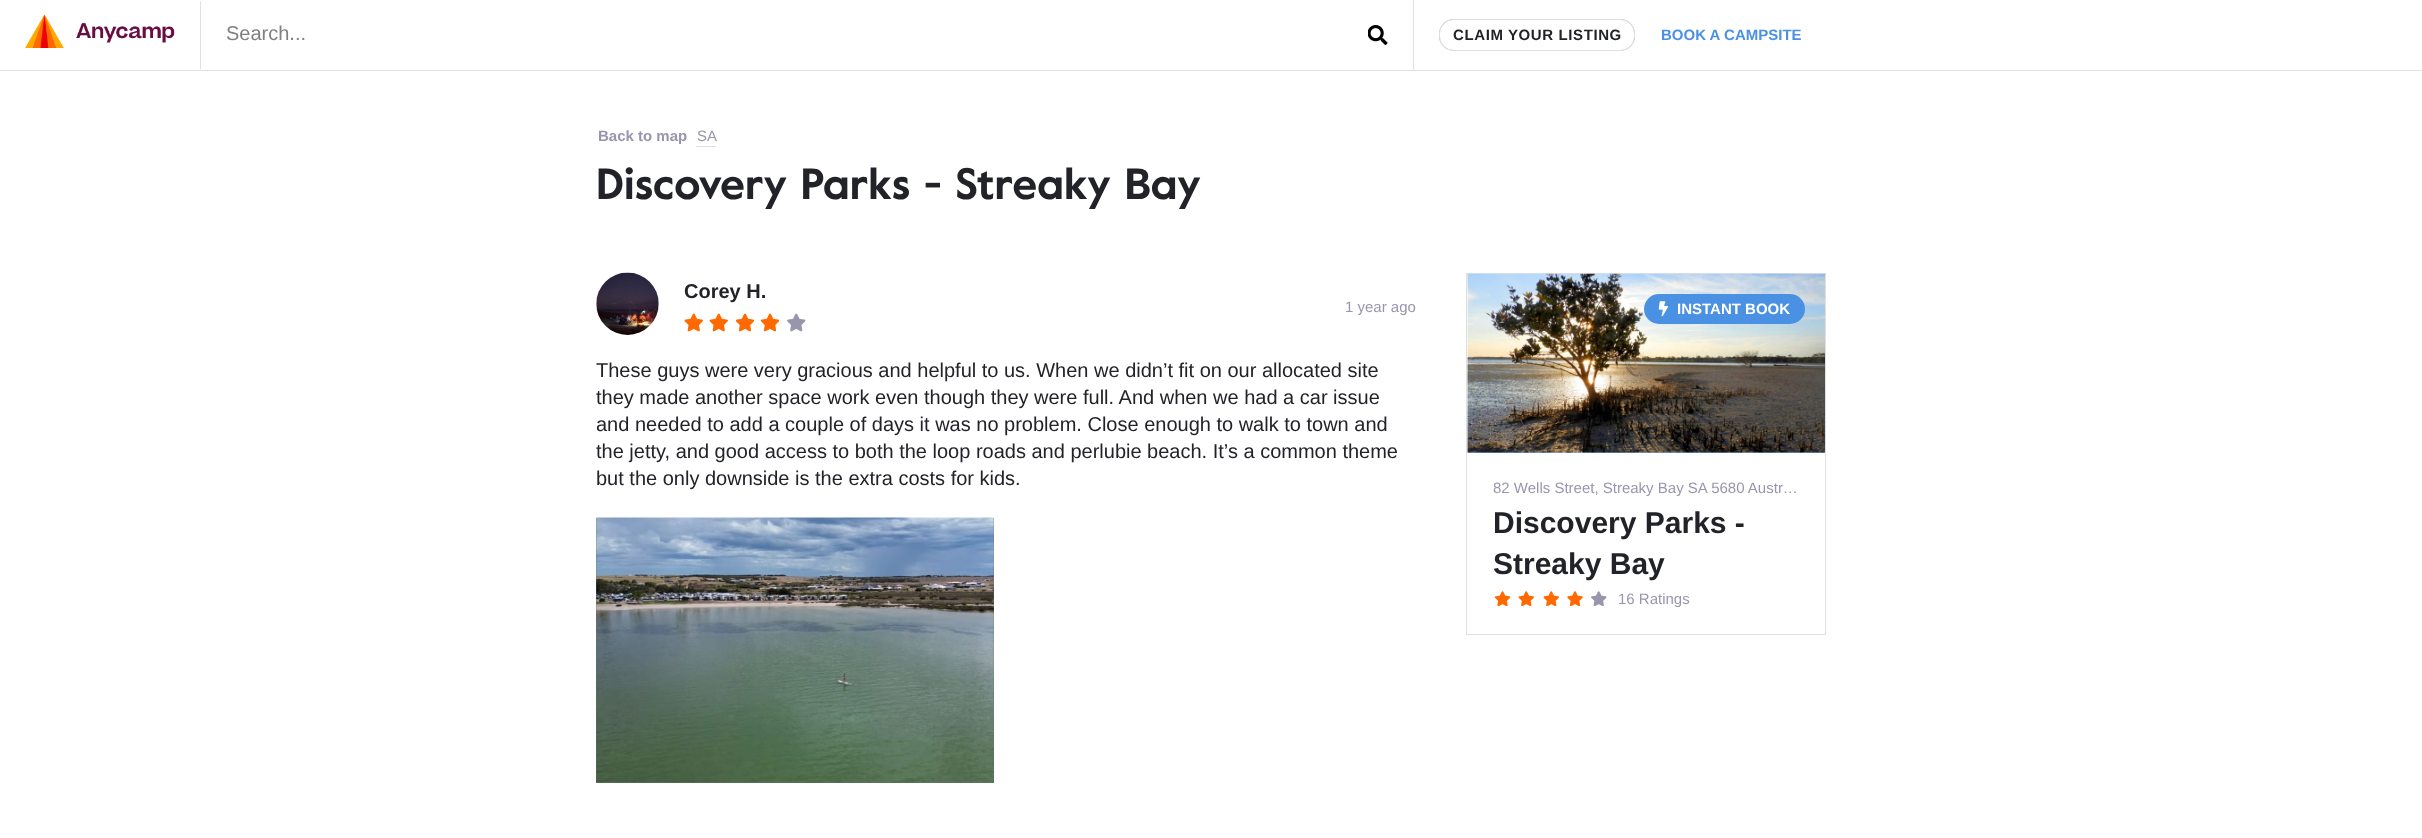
async function draw(canvas) {
  canvas.width = 2422;
  canvas.height = 838;
  const ctx = canvas.getContext('2d');
  ctx.miterLimit = 4;
  ctx.fontKerning = 'normal';
  function label(s, x, y, font, color) {
    ctx.font = font;
    ctx.fillStyle = color;
    ctx.fillText(s, x, y);
  }
  function rect(x, y, w, h, color) {
    ctx.fillStyle = color;
    ctx.fillRect(x, y, w, h);
  }
  function roundedRect(x, y, w, h, r, color) {
    ctx.fillStyle = color;
    ctx.beginPath();
    ctx.roundRect(x, y, w, h, r);
    ctx.fill();
  }
  async function image(src, x, y, w, h) {
    const img = new Image();
    img.src = src;
    await img.decode();
    ctx.drawImage(img, x, y, w, h);
  }

  rect(0, 0, 2422, 838, '#fff');
  rect(0, 70, 2422, 1, '#e0e0e0');
  rect(200, 1, 1, 68, '#e0e0e0');
  await image('assets/img1.png', 25, 14, 150, 34);
  label('Search...', 226, 40, '20px Liberation Sans', '#808080');
  await image('assets/img2.png', 1368, 25, 20, 20);
  rect(1413, 0, 1, 70, '#e0e0e0');
  ctx.fillStyle = '#0000004d';
  ctx.filter = 'blur(0.5px)';
  ctx.beginPath();
  ctx.roundRect(1439, 19, 196, 32, 15);
  ctx.fill();
  ctx.filter = 'none';
  ctx.fillStyle = '#fff';
  ctx.beginPath();
  ctx.roundRect(1439.5, 19.5, 195, 31, 14.5);
  ctx.fill();
  ctx.strokeStyle = '#e0e0e0';
  ctx.stroke();
  ctx.letterSpacing = '0.6px';
  label('CLAIM YOUR LISTING', 1453, 40, 'bold 15px Liberation Sans', '#222328');
  ctx.fillStyle = '#fff';
  ctx.beginPath();
  ctx.roundRect(1635, 0, 191, 70, [6, 6, 0, 0]);
  ctx.fill();
  ctx.letterSpacing = '0px';
  label('BOOK A CAMPSITE', 1661, 40, 'bold 15px Liberation Sans', '#4b91e3');
  label('Back to map', 598, 141, 'bold 15px Liberation Sans', '#9896ad');
  rect(696, 146, 20, 1, '#e0e0e0');
  label('SA', 697, 141, '15px Liberation Sans', '#9896ad');
  label('Discovery Parks - Streaky Bay', 596, 199, 'bold 43.75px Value', '#222328');
  await image('assets/img3.png', 596, 272, 63, 63);
  label('Corey H.', 684, 298, 'bold 20px Liberation Sans', '#222328');
  await image('assets/img4.png', 684, 313, 19, 19);
  await image('assets/img4.png', 709, 313, 19, 19);
  await image('assets/img5.png', 735, 313, 20, 19);
  await image('assets/img5.png', 760, 313, 20, 19);
  await image('assets/img6.png', 787, 313, 19, 19);
  label('1 year ago', 1345, 312, '15px Liberation Sans', '#9896ad');
  label('These guys were very gracious and helpful to us. When we didn’t fit on our allocated site', 596, 377, '20px Liberation Sans', '#222328');
  label('they made another space work even though they were full. And when we had a car issue', 596, 404, '20px Liberation Sans', '#222328');
  label('and needed to add a couple of days it was no problem. Close enough to walk to town and', 596, 431, '20px Liberation Sans', '#222328');
  label('the jetty, and good access to both the loop roads and perlubie beach. It’s a common theme', 596, 458, '20px Liberation Sans', '#222328');
  label('but the only downside is the extra costs for kids.', 596, 485, '20px Liberation Sans', '#222328');
  rect(596, 518, 398, 265, '#607868');
  await image('assets/img7.png', 596, 517, 398, 266);
  ctx.strokeRect(1466.5, 273.5, 359, 361);
  rect(1468, 452, 357, 1, '#82baf6');
  await image('assets/img8.png', 1467, 273, 358, 180);
  roundedRect(1644, 294, 161, 30, 15, '#4b91e3');
  await image('assets/img9.png', 1658, 301, 11, 16);
  label('INSTANT BOOK', 1677, 314, 'bold 15px Liberation Sans', '#fff');
  label('82 Wells Street, Streaky Bay SA 5680 Austr…', 1493, 493, '15px Liberation Sans', '#9896ad');
  label('Discovery Parks -', 1493, 533, 'bold 30px Liberation Sans', '#222328');
  label('Streaky Bay', 1493, 574, 'bold 30px Liberation Sans', '#222328');
  await image('assets/img10.png', 1494, 591, 17, 15);
  await image('assets/img11.png', 1518, 591, 16, 15);
  await image('assets/img11.png', 1543, 591, 16, 15);
  await image('assets/img12.png', 1567, 591, 16, 15);
  await image('assets/img13.png', 1591, 591, 16, 15);
  label('16 Ratings', 1618, 604, '15px Liberation Sans', '#9896ad');
}

draw(document.querySelector('canvas'));
